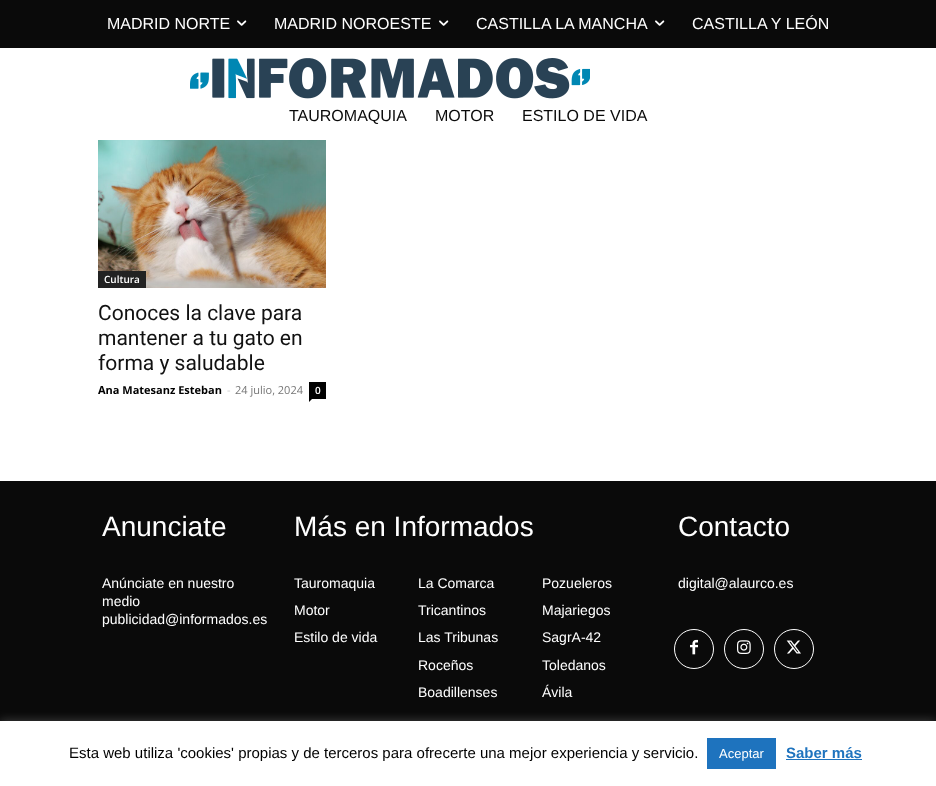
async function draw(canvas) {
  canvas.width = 936;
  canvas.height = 786;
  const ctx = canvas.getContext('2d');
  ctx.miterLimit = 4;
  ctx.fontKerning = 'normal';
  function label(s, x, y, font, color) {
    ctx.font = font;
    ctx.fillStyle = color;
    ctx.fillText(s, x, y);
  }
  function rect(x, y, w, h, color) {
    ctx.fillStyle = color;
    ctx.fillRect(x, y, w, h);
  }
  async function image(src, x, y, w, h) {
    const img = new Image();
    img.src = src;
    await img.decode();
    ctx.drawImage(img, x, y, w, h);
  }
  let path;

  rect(0, 0, 936, 786, '#fff');
  rect(0, 0, 936, 48, '#0a0a0a');
  label('MADRID NORTE', 107, 29, '16px Liberation Sans', '#fff');
  await image('assets/img1.png', 237, 20, 10, 6);
  label('MADRID NOROESTE', 274, 29, '16px Liberation Sans', '#fff');
  await image('assets/img1.png', 439, 20, 10, 6);
  label('CASTILLA LA MANCHA', 476, 29, '16px Liberation Sans', '#fff');
  await image('assets/img1.png', 655, 20, 10, 6);
  label('CASTILLA Y LEÓN', 692, 29, '16px Liberation Sans', '#fff');
  await image('assets/img2.png', 190, 58, 400, 41);
  label('TAUROMAQUIA', 289, 121, '16px Liberation Sans', '#0a0a0a');
  label('MOTOR', 435, 121, '16px Liberation Sans', '#0a0a0a');
  label('ESTILO DE VIDA', 522, 121, '16px Liberation Sans', '#0a0a0a');
  await image('assets/img3.png', 98, 140, 228, 148);
  rect(98, 271, 48, 17, '#222');
  label('Cultura', 104, 283, '600 10px Open Sans', '#fff');
  label('Conoces la clave para', 98, 320, '21px Roboto', '#111');
  label('mantener a tu gato en', 98, 345, '21px Roboto', '#111');
  label('forma y saludable', 98, 370, '21px Roboto', '#111');
  label('Ana Matesanz Esteban', 98, 394, 'bold 11px Open Sans', '#000');
  label('-', 227, 394, '11px Open Sans', '#ccc');
  label('24 julio, 2024', 235, 394, '11px Open Sans', '#767676');
  rect(309, 382, 17, 17, '#000');
  label('0', 315, 394, '600 10px Open Sans', '#fff');
  ctx.fillStyle = '#000';
  path = new Path2D('M309 399H312L309 402Z');
  ctx.fill(path);
  rect(0, 481, 936, 240, '#0a0a0a');
  label('Anunciate', 102, 536, '28px Liberation Sans', '#fff');
  label('Más en Informados', 294, 536, '28px Liberation Sans', '#fff');
  label('Contacto', 678, 536, '28px Liberation Sans', '#fff');
  label('Anúnciate en nuestro', 102, 588, '14px Liberation Sans', '#fff');
  label('medio', 102, 606, '14px Liberation Sans', '#fff');
  label('publicidad@informados.es', 102, 624, '14px Liberation Sans', '#fff');
  label('Tauromaquia', 294, 588, '14px Liberation Sans', '#fff');
  label('Motor', 294, 615, '14px Liberation Sans', '#fff');
  label('Estilo de vida', 294, 642, '14px Liberation Sans', '#fff');
  label('La Comarca', 418, 588, '14px Liberation Sans', '#fff');
  label('Tricantinos', 418, 615, '14px Liberation Sans', '#fff');
  label('Las Tribunas', 418, 642, '14px Liberation Sans', '#fff');
  label('Roceños', 418, 670, '14px Liberation Sans', '#fff');
  label('Boadillenses', 418, 697, '14px Liberation Sans', '#fff');
  label('Pozueleros', 542, 588, '14px Liberation Sans', '#fff');
  label('Majariegos', 542, 615, '14px Liberation Sans', '#fff');
  label('SagrA-42', 542, 642, '14px Liberation Sans', '#fff');
  label('Toledanos', 542, 670, '14px Liberation Sans', '#fff');
  label('Ávila', 542, 697, '14px Liberation Sans', '#fff');
  label('digital@alaurco.es', 678, 588, '14px Liberation Sans', '#fff');
  ctx.beginPath();
  ctx.arc(694, 649, 19.5, 0, 2 * Math.PI);
  ctx.strokeStyle = '#fff';
  ctx.stroke();
  await image('assets/img4.png', 690, 639, 8, 16);
  ctx.beginPath();
  ctx.arc(744, 649, 19.5, 0, 2 * Math.PI);
  ctx.stroke();
  await image('assets/img5.png', 737, 640, 14, 14);
  ctx.beginPath();
  ctx.arc(794, 649, 19.5, 0, 2 * Math.PI);
  ctx.stroke();
  await image('assets/img6.png', 786, 640, 15, 14);
  ctx.fillStyle = '#acabab4d';
  ctx.filter = 'blur(5px)';
  ctx.beginPath();
  ctx.rect(0, 720, 936, 65);
  ctx.fill();
  ctx.filter = 'none';
  rect(0, 721, 936, 65, '#fff');
  label('Esta web utiliza \'cookies\' propias y de terceros para ofrecerte una mejor experiencia y servicio.', 69, 758, '15px Liberation Sans', '#000');
  rect(707, 738, 69, 31, '#1e73be');
  label('Aceptar', 719, 758, '13px Liberation Sans', '#fff');
  label('Saber más', 786, 758, 'bold 15px Liberation Sans', '#1e73be');
  rect(786, 759, 76, 1, '#1e73be');
}

draw(document.querySelector('canvas'));
